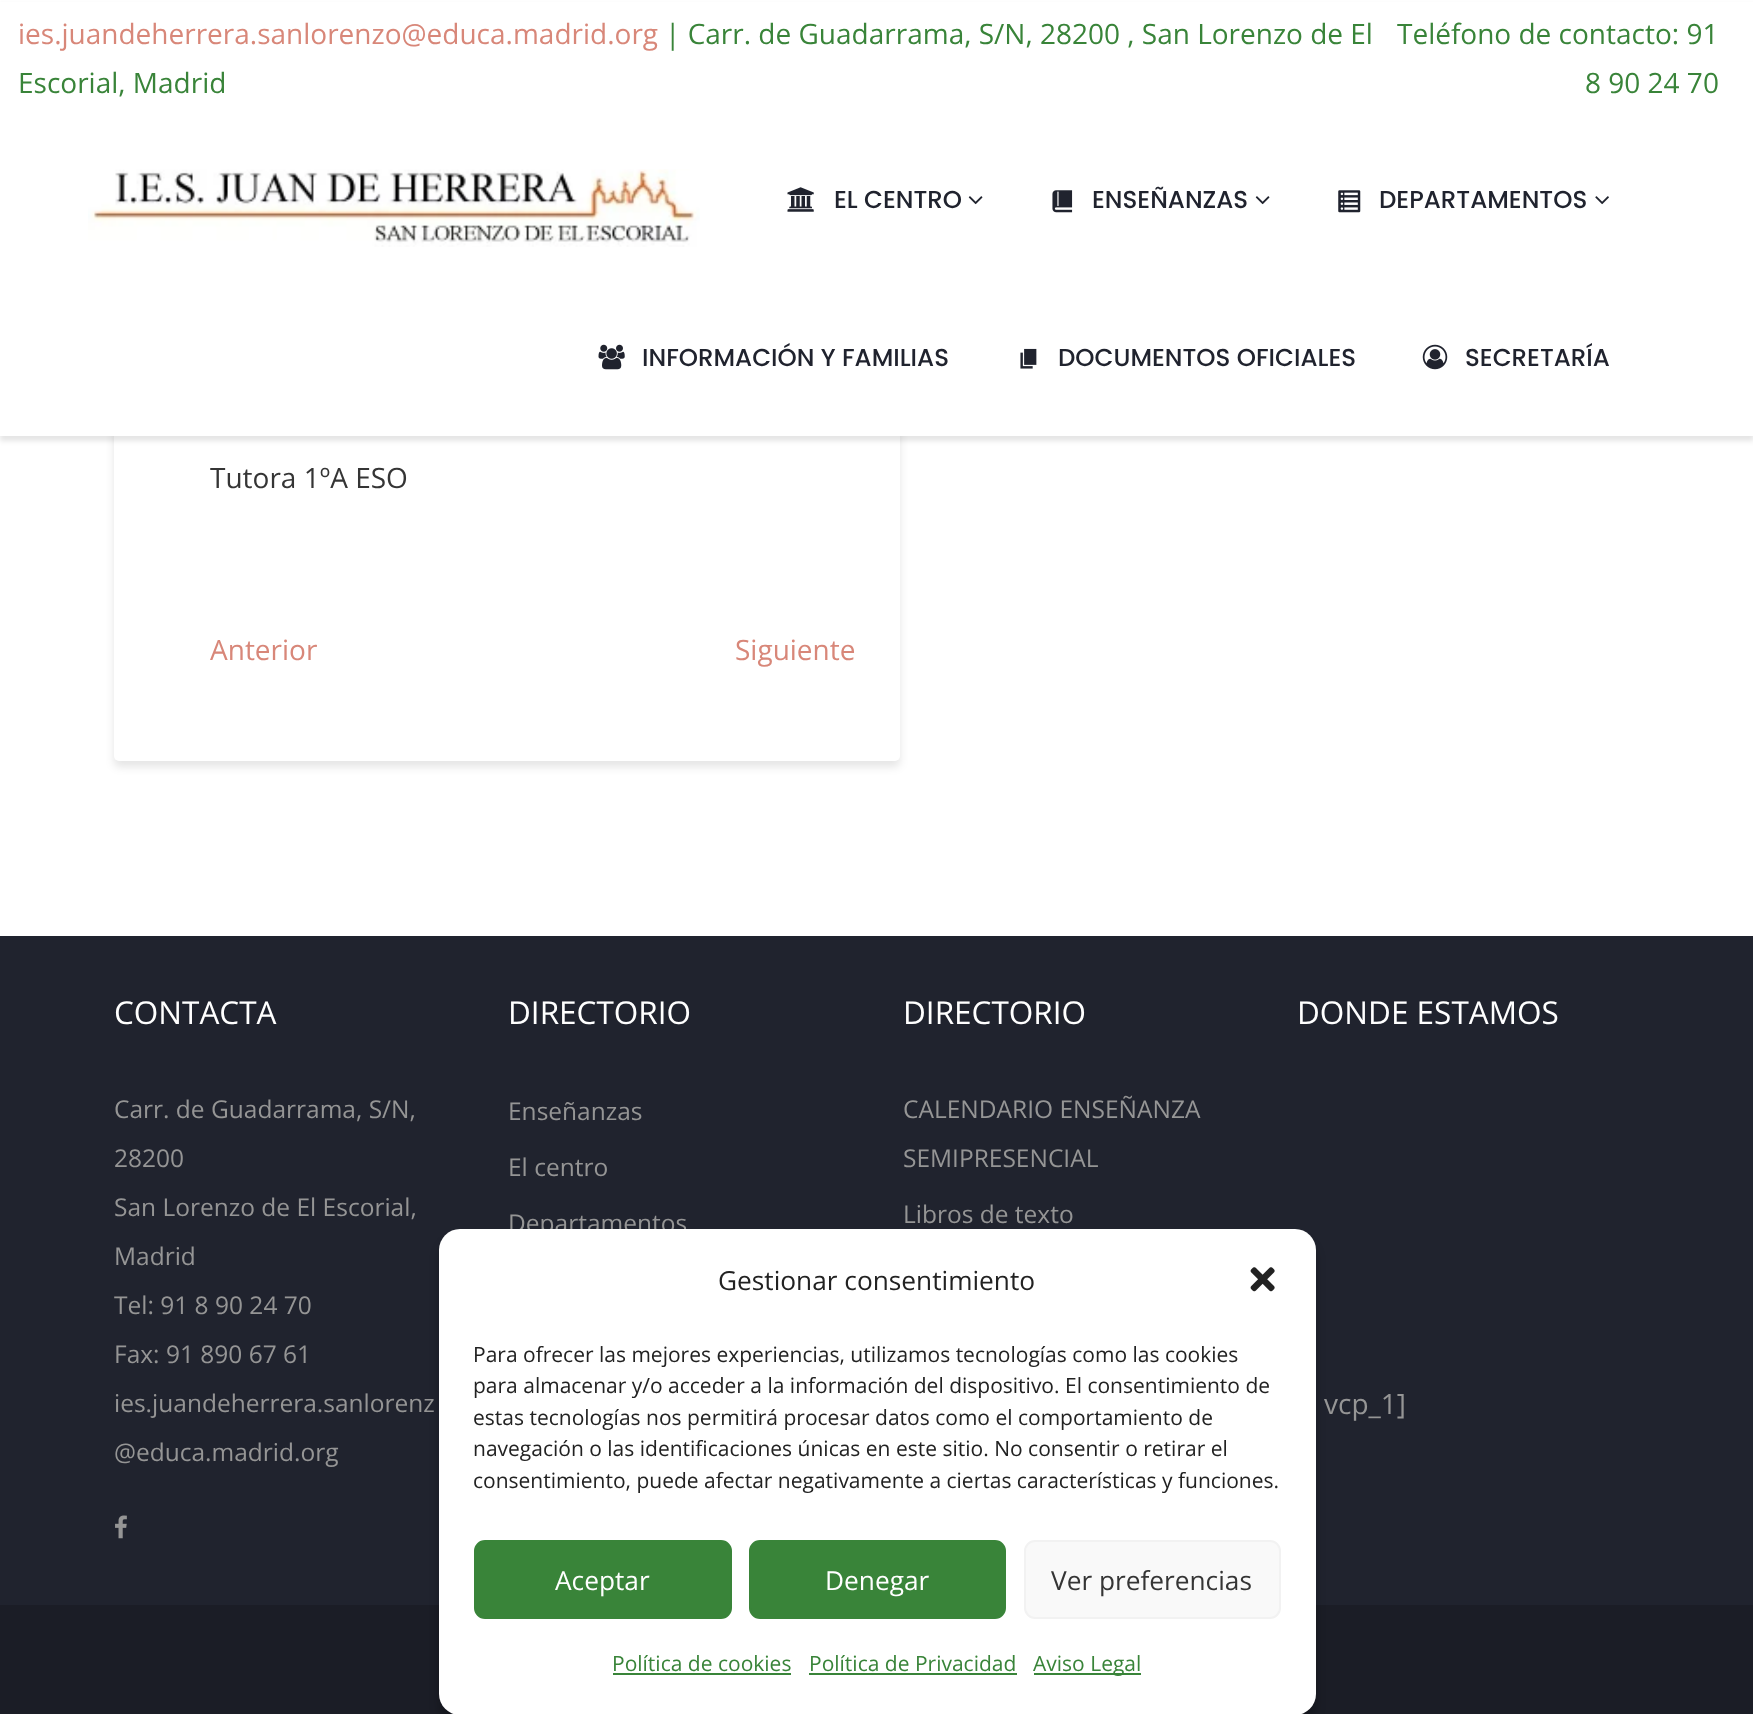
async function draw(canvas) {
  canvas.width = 1753;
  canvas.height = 1714;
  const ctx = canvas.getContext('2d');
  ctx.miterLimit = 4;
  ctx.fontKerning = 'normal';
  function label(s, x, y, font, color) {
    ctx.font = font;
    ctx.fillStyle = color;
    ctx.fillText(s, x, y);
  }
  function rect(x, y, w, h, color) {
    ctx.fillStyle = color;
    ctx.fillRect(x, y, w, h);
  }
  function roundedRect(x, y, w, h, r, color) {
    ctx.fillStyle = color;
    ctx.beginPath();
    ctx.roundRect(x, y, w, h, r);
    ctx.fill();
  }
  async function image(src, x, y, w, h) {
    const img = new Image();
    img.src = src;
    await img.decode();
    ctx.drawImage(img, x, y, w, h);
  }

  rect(0, 0, 1753, 1714, '#fff');
  ctx.fillStyle = '#0000001a';
  ctx.filter = 'blur(4.5px)';
  ctx.beginPath();
  ctx.roundRect(114, 228, 786, 539, 5);
  ctx.fill();
  ctx.filter = 'none';
  roundedRect(114, 222, 786, 539, 5, '#fff');
  ctx.fillStyle = '#0000001a';
  ctx.filter = 'blur(2.5px)';
  ctx.beginPath();
  ctx.rect(0, 5, 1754, 436);
  ctx.fill();
  ctx.filter = 'none';
  rect(0, 2, 1753, 434, '#fff');
  label('ies.juandeherrera.sanlorenzo@educa.madrid.org', 18, 44, '28px Open Sans', '#d88779');
  label('| Carr. de Guadarrama, S/N, 28200 , San Lorenzo de El', 665, 44, '28px Open Sans', '#398439');
  label('Escorial, Madrid', 18, 93, '28px Open Sans', '#398439');
  label('Teléfono de contacto: 91', 1397, 44, '28px Open Sans', '#398439');
  label('8 90 24 70', 1585, 93, '28px Open Sans', '#398439');
  await image('assets/img1.png', 88, 169, 612, 78);
  await image('assets/img2.png', 787, 187, 27, 25);
  label('EL CENTRO', 834, 208, '500 24.5px Poppins', '#20232e');
  await image('assets/img3.png', 968, 196, 15, 9);
  await image('assets/img4.png', 1052, 190, 21, 23);
  label('ENSEÑANZAS', 1092, 208, '500 24.5px Poppins', '#20232e');
  await image('assets/img3.png', 1255, 196, 15, 9);
  await image('assets/img5.png', 1338, 190, 23, 23);
  label('DEPARTAMENTOS', 1379, 208, '500 24.5px Poppins', '#20232e');
  await image('assets/img6.png', 1595, 196, 14, 9);
  await image('assets/img7.png', 598, 344, 27, 26);
  label('INFORMACIÓN Y FAMILIAS', 642, 366, '500 24.5px Poppins', '#20232e');
  await image('assets/img8.png', 1020, 348, 17, 21);
  label('DOCUMENTOS OFICIALES', 1058, 366, '500 24.5px Poppins', '#20232e');
  await image('assets/img9.png', 1422, 344, 26, 26);
  label('SECRETARÍA', 1465, 366, '500 24.5px Poppins', '#20232e');
  label('Tutora 1ºA ESO', 210, 488, '28px Open Sans', '#353535');
  label('Anterior', 210, 660, '28px Open Sans', '#d88779');
  label('Siguiente', 735, 660, '28px Open Sans', '#d88779');
  rect(0, 936, 1753, 669, '#20232e');
  label('CONTACTA', 114, 1024, '31.5px Open Sans', '#fff');
  label('Carr. de Guadarrama, S/N,', 114, 1118, '24.5px Open Sans', '#959595');
  label('28200', 114, 1167, '24.5px Open Sans', '#959595');
  label('San Lorenzo de El Escorial,', 114, 1216, '24.5px Open Sans', '#959595');
  label('Madrid', 114, 1265, '24.5px Open Sans', '#959595');
  label('Tel: 91 8 90 24 70', 114, 1314, '24.5px Open Sans', '#959595');
  label('Fax: 91 890 67 61', 114, 1363, '24.5px Open Sans', '#959595');
  label('ies.juandeherrera.sanlorenz', 114, 1412, '24.5px Open Sans', '#959595');
  label('@educa.madrid.org', 114, 1461, '24.5px Open Sans', '#959595');
  await image('assets/img10.png', 115, 1515, 12, 24);
  label('DIRECTORIO', 508, 1024, '31.5px Open Sans', '#fff');
  label('Enseñanzas', 508, 1120, '24.5px Open Sans', '#959595');
  label('El centro', 508, 1176, '24.5px Open Sans', '#959595');
  label('Departamentos', 508, 1232, '24.5px Open Sans', '#959595');
  label('DIRECTORIO', 903, 1024, '31.5px Open Sans', '#fff');
  label('CALENDARIO ENSEÑANZA', 903, 1118, '24.5px Open Sans', '#959595');
  label('SEMIPRESENCIAL', 903, 1167, '24.5px Open Sans', '#959595');
  label('Libros de texto', 903, 1223, '24.5px Open Sans', '#959595');
  label('DONDE ESTAMOS', 1297, 1024, '31.5px Open Sans', '#fff');
  label('vcp_1]', 1324, 1414, '28px Open Sans', '#959595');
  rect(0, 1605, 1753, 109, '#1b1d26');
  ctx.fillStyle = '#0000003b';
  ctx.filter = 'blur(5px)';
  ctx.beginPath();
  ctx.roundRect(439, 1239, 877, 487, 21);
  ctx.fill();
  ctx.filter = 'none';
  roundedRect(439, 1229, 877, 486, 21, '#fff');
  label('Gestionar consentimiento', 718, 1290, '26.25px Open Sans', '#222');
  await image('assets/img11.png', 1250, 1267, 25, 25);
  label('Para ofrecer las mejores experiencias, utilizamos tecnologías como las cookies', 473, 1362, '21px Open Sans', '#222');
  label('para almacenar y/o acceder a la información del dispositivo. El consentimiento de', 473, 1393, '21px Open Sans', '#222');
  label('estas tecnologías nos permitirá procesar datos como el comportamiento de', 473, 1425, '21px Open Sans', '#222');
  label('navegación o las identificaciones únicas en este sitio. No consentir o retirar el', 473, 1456, '21px Open Sans', '#222');
  label('consentimiento, puede afectar negativamente a ciertas características y funciones.', 473, 1488, '21px Open Sans', '#222');
  ctx.fillStyle = '#398439';
  ctx.beginPath();
  ctx.roundRect(475, 1541, 256, 77, 10);
  ctx.fill();
  ctx.strokeStyle = '#398439';
  ctx.lineWidth = 2;
  ctx.stroke();
  label('Aceptar', 555, 1590, '26.25px Open Sans', '#fff');
  ctx.fillStyle = '#398439';
  ctx.beginPath();
  ctx.roundRect(750, 1541, 255, 77, 10);
  ctx.fill();
  ctx.stroke();
  label('Denegar', 825, 1590, '26.25px Open Sans', '#fff');
  ctx.fillStyle = '#f9f9f9';
  ctx.beginPath();
  ctx.roundRect(1025, 1541, 255, 77, 10);
  ctx.fill();
  ctx.strokeStyle = '#f2f2f2';
  ctx.stroke();
  label('Ver preferencias', 1051, 1590, '26.25px Open Sans', '#353535');
  label('Política de cookies', 612, 1671, '21px Open Sans', '#398439');
  rect(613, 1673, 178, 2, '#398439');
  label('Política de Privacidad', 809, 1671, '21px Open Sans', '#398439');
  rect(809, 1673, 208, 2, '#398439');
  rect(1034, 1673, 107, 2, '#398439');
  label('Aviso Legal', 1033, 1671, '21px Open Sans', '#398439');
}

draw(document.querySelector('canvas'));
